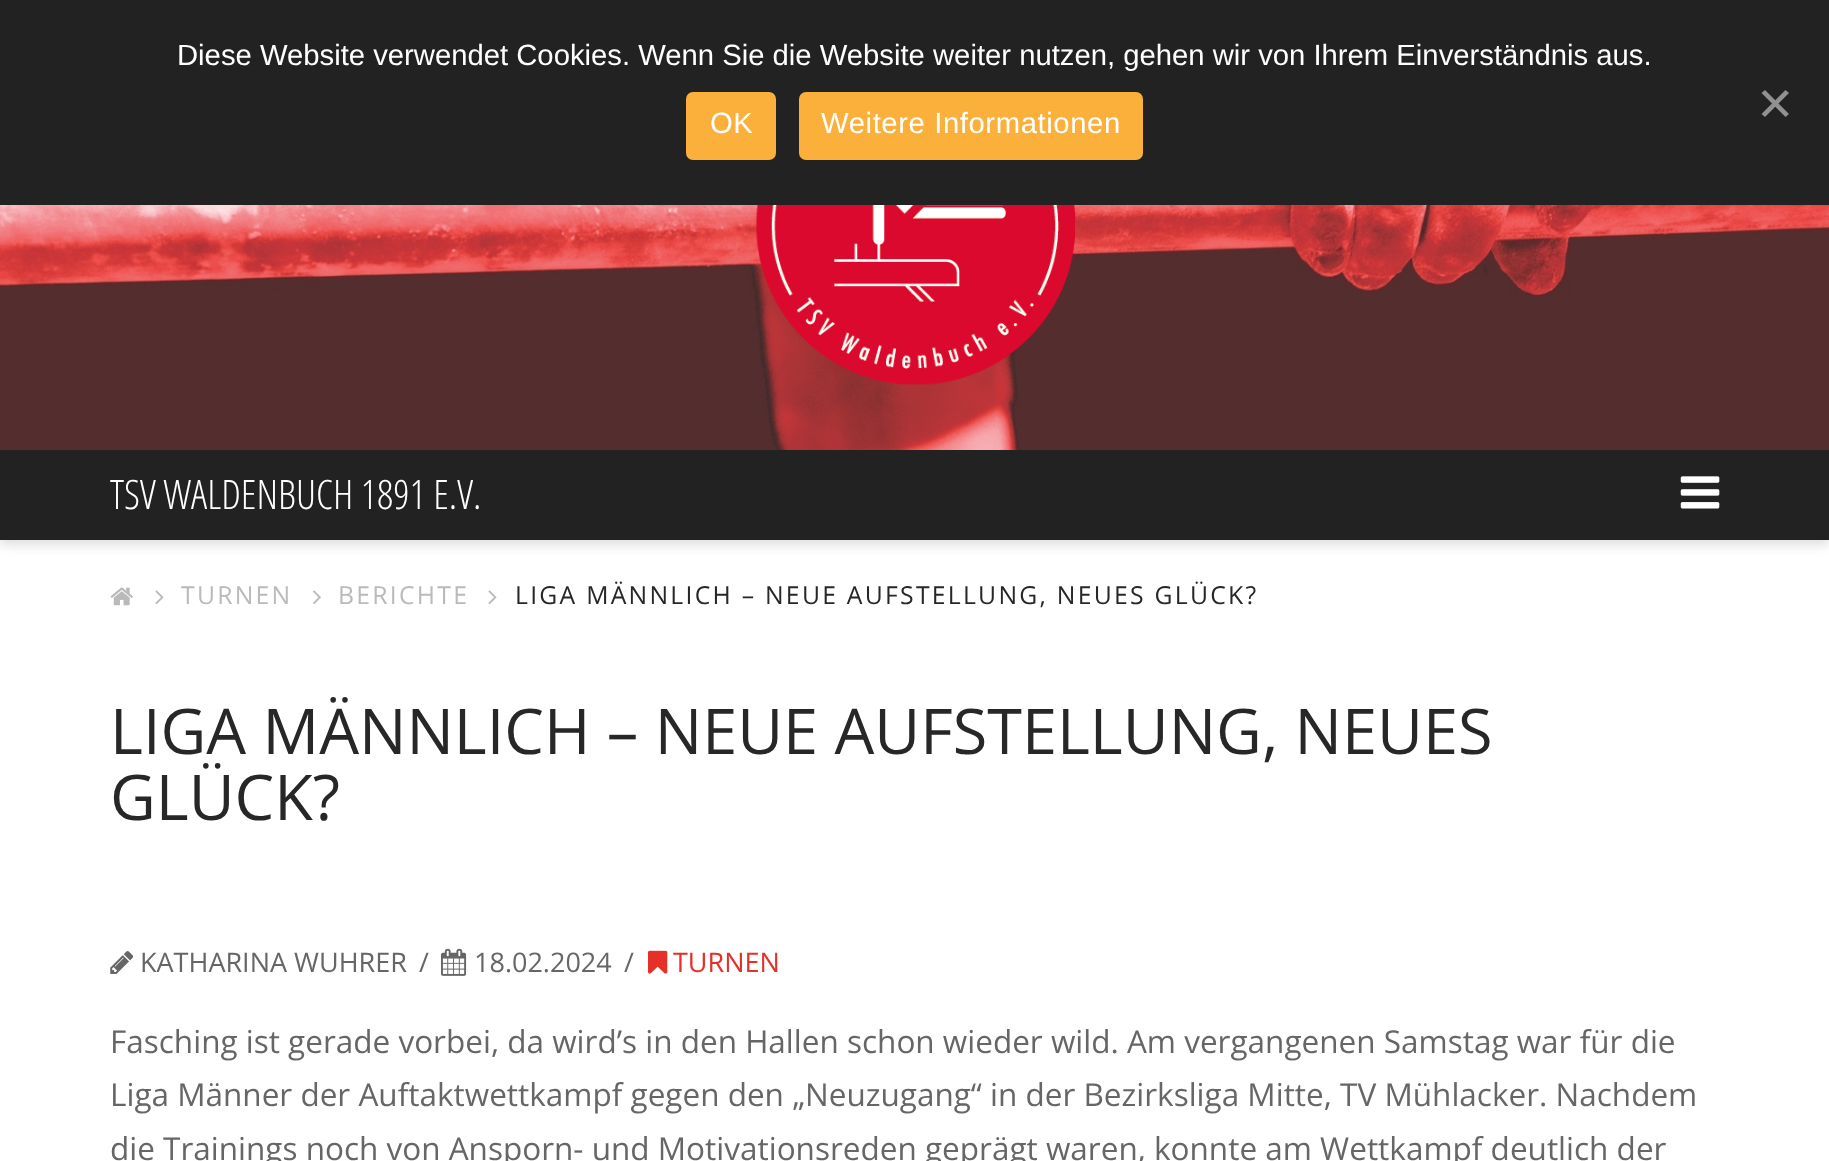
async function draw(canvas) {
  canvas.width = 1829;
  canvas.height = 1161;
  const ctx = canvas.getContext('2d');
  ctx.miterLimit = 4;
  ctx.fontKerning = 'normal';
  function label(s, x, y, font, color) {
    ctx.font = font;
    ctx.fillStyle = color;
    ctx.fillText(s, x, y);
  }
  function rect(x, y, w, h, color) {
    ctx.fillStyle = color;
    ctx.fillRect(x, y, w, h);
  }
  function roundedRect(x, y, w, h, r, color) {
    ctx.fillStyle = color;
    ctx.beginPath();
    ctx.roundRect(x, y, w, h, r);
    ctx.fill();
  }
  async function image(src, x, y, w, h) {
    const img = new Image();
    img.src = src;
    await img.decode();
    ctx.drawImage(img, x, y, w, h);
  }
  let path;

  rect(0, 0, 1829, 1161, '#fff');
  rect(0, 0, 1829, 205, '#222');
  label('Diese Website verwendet Cookies. Wenn Sie die Website weiter nutzen, gehen wir von Ihrem Einverständnis aus.', 177, 65, '29.25px Liberation Sans', '#fff');
  ctx.fillStyle = '#919191';
  path = new Path2D('M1785.5 90L1789 93L1765 117L1761.5 114Z');
  ctx.fill(path);
  path = new Path2D('M1761.5 93L1765 90L1789 114L1785.5 117Z');
  ctx.fill(path);
  roundedRect(686, 92, 90, 68, 7, '#fbb03b');
  ctx.letterSpacing = '0.6px';
  label('OK', 710, 133, '29.25px Liberation Sans', '#fff');
  roundedRect(799, 92, 344, 68, 7, '#fbb03b');
  label('Weitere Informationen', 821, 133, '29.25px Liberation Sans', '#fff');
  ctx.fillStyle = '#00000021';
  ctx.filter = 'blur(5.5px)';
  ctx.beginPath();
  ctx.rect(0, 455, 1829, 90);
  ctx.fill();
  ctx.filter = 'none';
  await image('assets/img1.png', 0, 205, 1829, 245);
  await image('assets/img2.png', 756, 205, 320, 180);
  rect(0, 450, 1829, 90, '#222');
  ctx.letterSpacing = '0px';
  label('TSV WALDENBUCH 1891 E.V.', 110, 509, '300 40.5px Open Sans Condensed', '#fff');
  await image('assets/img3.png', 1680, 476, 40, 33);
  await image('assets/img4.png', 110, 587, 23, 19);
  await image('assets/img5.png', 155, 590, 9, 15);
  ctx.letterSpacing = '2.25px';
  label('TURNEN', 181, 604, '24.75px Open Sans', '#bababa');
  await image('assets/img6.png', 313, 590, 8, 14);
  label('BERICHTE', 338, 604, '24.75px Open Sans', '#bababa');
  await image('assets/img5.png', 488, 590, 9, 15);
  label('LIGA MÄNNLICH – NEUE AUFSTELLUNG, NEUES GLÜCK?', 515, 604, '24.75px Open Sans', '#272727');
  ctx.letterSpacing = '0px';
  label('LIGA MÄNNLICH – NEUE AUFSTELLUNG, NEUES', 110, 754, '63px Open Sans', '#272727');
  label('GLÜCK?', 110, 820, '63px Open Sans', '#272727');
  await image('assets/img7.png', 110, 951, 24, 23);
  label('KATHARINA WUHRER', 140, 972, '27px Open Sans', '#666');
  label('/', 419, 972, '27px Open Sans', '#666');
  await image('assets/img8.png', 441, 948, 26, 28);
  label('18.02.2024', 474, 972, '27px Open Sans', '#666');
  label('/', 624, 972, '27px Open Sans', '#666');
  await image('assets/img9.png', 648, 950, 20, 24);
  label('TURNEN', 673, 972, '27px Open Sans', '#e43029');
  label('Fasching ist gerade vorbei, da wird’s in den Hallen schon wieder wild. Am vergangenen Samstag war für die', 110, 1053, '31.5px Open Sans', '#666');
  label('Liga Männer der Auftaktwettkampf gegen den „Neuzugang“ in der Bezirksliga Mitte, TV Mühlacker. Nachdem', 110, 1106, '31.5px Open Sans', '#666');
  label('die Trainings noch von Ansporn- und Motivationsreden geprägt waren, konnte am Wettkampf deutlich der', 110, 1160, '31.5px Open Sans', '#666');
}

draw(document.querySelector('canvas'));
